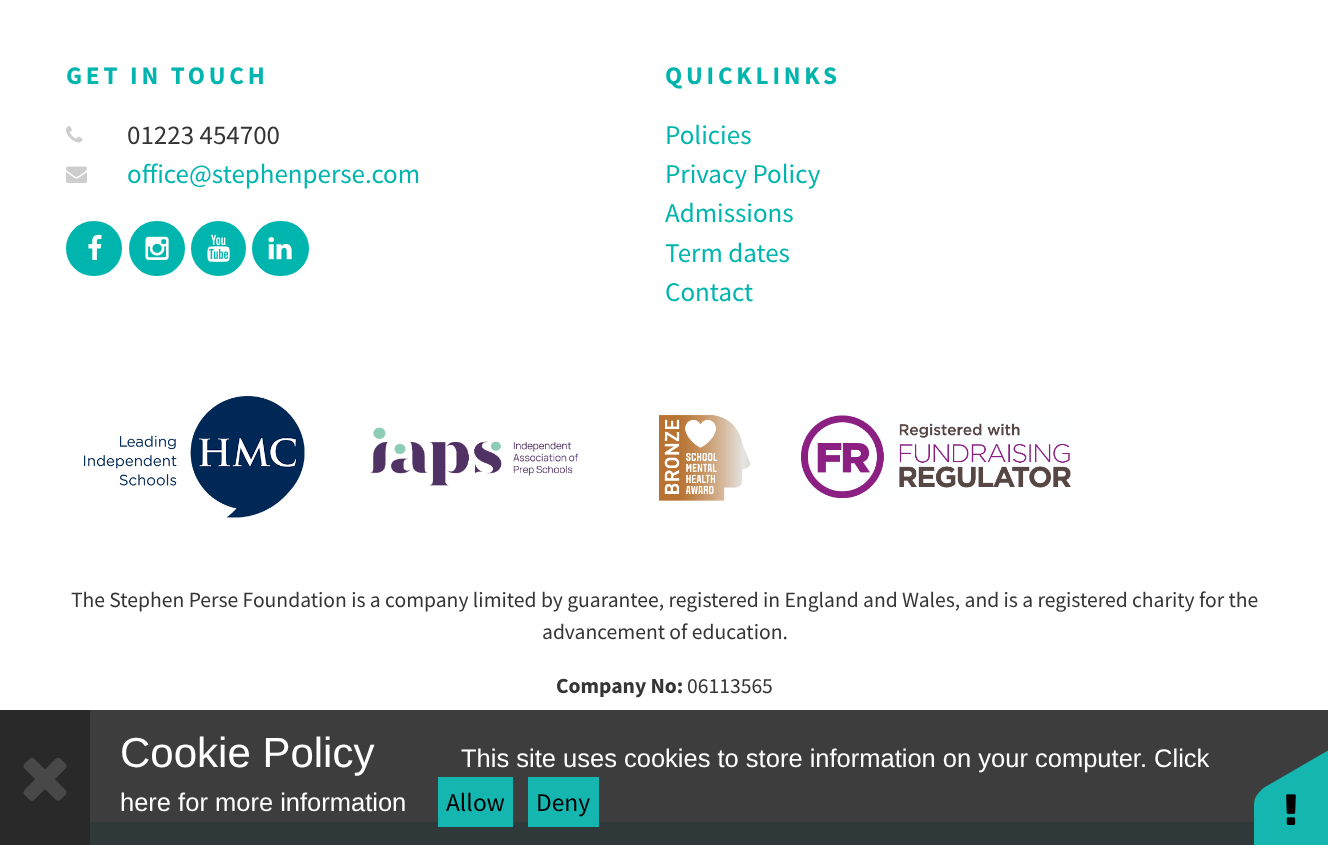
async function draw(canvas) {
  canvas.width = 1328;
  canvas.height = 845;
  const ctx = canvas.getContext('2d');
  ctx.miterLimit = 4;
  ctx.fontKerning = 'normal';
  function label(s, x, y, font, color) {
    ctx.font = font;
    ctx.fillStyle = color;
    ctx.fillText(s, x, y);
  }
  function rect(x, y, w, h, color) {
    ctx.fillStyle = color;
    ctx.fillRect(x, y, w, h);
  }
  async function image(src, x, y, w, h) {
    const img = new Image();
    img.src = src;
    await img.decode();
    ctx.drawImage(img, x, y, w, h);
  }
  let path;

  rect(0, 0, 1328, 845, '#fff');
  ctx.letterSpacing = '3.75px';
  label('GET IN TOUCH', 66, 84, 'bold 25.25px Source Sans Pro', '#00b5ae');
  await image('assets/img1.png', 66, 126, 17, 17);
  ctx.letterSpacing = '0px';
  label('01223 454700', 127, 144, '27px Source Sans Pro', '#353535');
  await image('assets/img2.png', 66, 166, 21, 17);
  label('office@stephenperse.com', 127, 183, '27px Source Sans Pro', '#00b5ae');
  ctx.beginPath();
  ctx.roundRect(67.5, 222.5, 53, 52, 26);
  ctx.fill();
  ctx.strokeStyle = '#00b5ae';
  ctx.lineWidth = 3;
  ctx.stroke();
  await image('assets/img3.png', 88, 234, 14, 26);
  ctx.beginPath();
  ctx.roundRect(130.5, 222.5, 53, 52, 26);
  ctx.fill();
  ctx.stroke();
  await image('assets/img4.png', 145, 236, 24, 24);
  ctx.beginPath();
  ctx.arc(218.5, 248.5, 26, 0, 2 * Math.PI);
  ctx.fill();
  ctx.stroke();
  await image('assets/img5.png', 207, 234, 23, 28);
  ctx.beginPath();
  ctx.roundRect(253.5, 222.5, 54, 52, 26);
  ctx.fill();
  ctx.stroke();
  await image('assets/img6.png', 268, 237, 24, 23);
  ctx.letterSpacing = '3.75px';
  label('QUICKLINKS', 665, 84, 'bold 25.25px Source Sans Pro', '#00b5ae');
  ctx.letterSpacing = '0px';
  label('Policies', 665, 144, '27px Source Sans Pro', '#00b5ae');
  label('Privacy Policy', 665, 183, '27px Source Sans Pro', '#00b5ae');
  label('Admissions', 665, 222, '27px Source Sans Pro', '#00b5ae');
  label('Term dates', 665, 262, '27px Source Sans Pro', '#00b5ae');
  label('Contact', 665, 301, '27px Source Sans Pro', '#00b5ae');
  await image('assets/img7.png', 84, 396, 221, 122);
  await image('assets/img8.png', 370, 427, 209, 59);
  await image('assets/img9.png', 659, 414, 92, 87);
  await image('assets/img10.png', 801, 415, 270, 83);
  label('The Stephen Perse Foundation is a company limited by guarantee, registered in England and Wales, and is a registered charity for the', 71, 607, '21.6px Source Sans Pro', '#353535');
  label('advancement of education.', 542, 639, '21.6px Source Sans Pro', '#353535');
  label('Company No:', 556, 693, 'bold 21.6px Source Sans Pro', '#353535');
  label('06113565', 687, 693, '21.6px Source Sans Pro', '#353535');
  rect(90, 822, 1164, 23, '#00b5ae');
  rect(90, 710, 1238, 135, '#333333f2');
  rect(0, 710, 90, 135, '#292929');
  await image('assets/img11.png', 23, 757, 44, 44);
  label('Cookie Policy', 120, 767, '42px Liberation Sans', '#fff');
  label('This site uses cookies to store information on your computer. Click', 461, 767, '25.5px Liberation Sans', '#fff');
  label('here for more information', 120, 811, '25.5px Liberation Sans', '#fff');
  rect(438, 777, 75, 50, '#15b6af');
  label('Allow', 446, 811, '25.5px Source Sans Pro', '#000');
  rect(528, 777, 71, 50, '#15b6af');
  label('Deny', 536, 811, '25.5px Source Sans Pro', '#000');
  ctx.fillStyle = '#15b6af';
  path = new Path2D('M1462 805V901C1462 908 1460 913 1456 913H1260C1257 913 1254 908 1254 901V805C1254 799 1257 793 1260 793H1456C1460 793 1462 799 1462 805Z');
  ctx.fill(path);
  path = new Path2D('M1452 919L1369 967C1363 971 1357 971 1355 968L1257 799C1256 796 1259 791 1265 787L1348 739C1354 736 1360 736 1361 739L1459 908C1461 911 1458 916 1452 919Z');
  ctx.fill(path);
  await image('assets/img12.png', 1286, 794, 10, 31);
}

draw(document.querySelector('canvas'));
